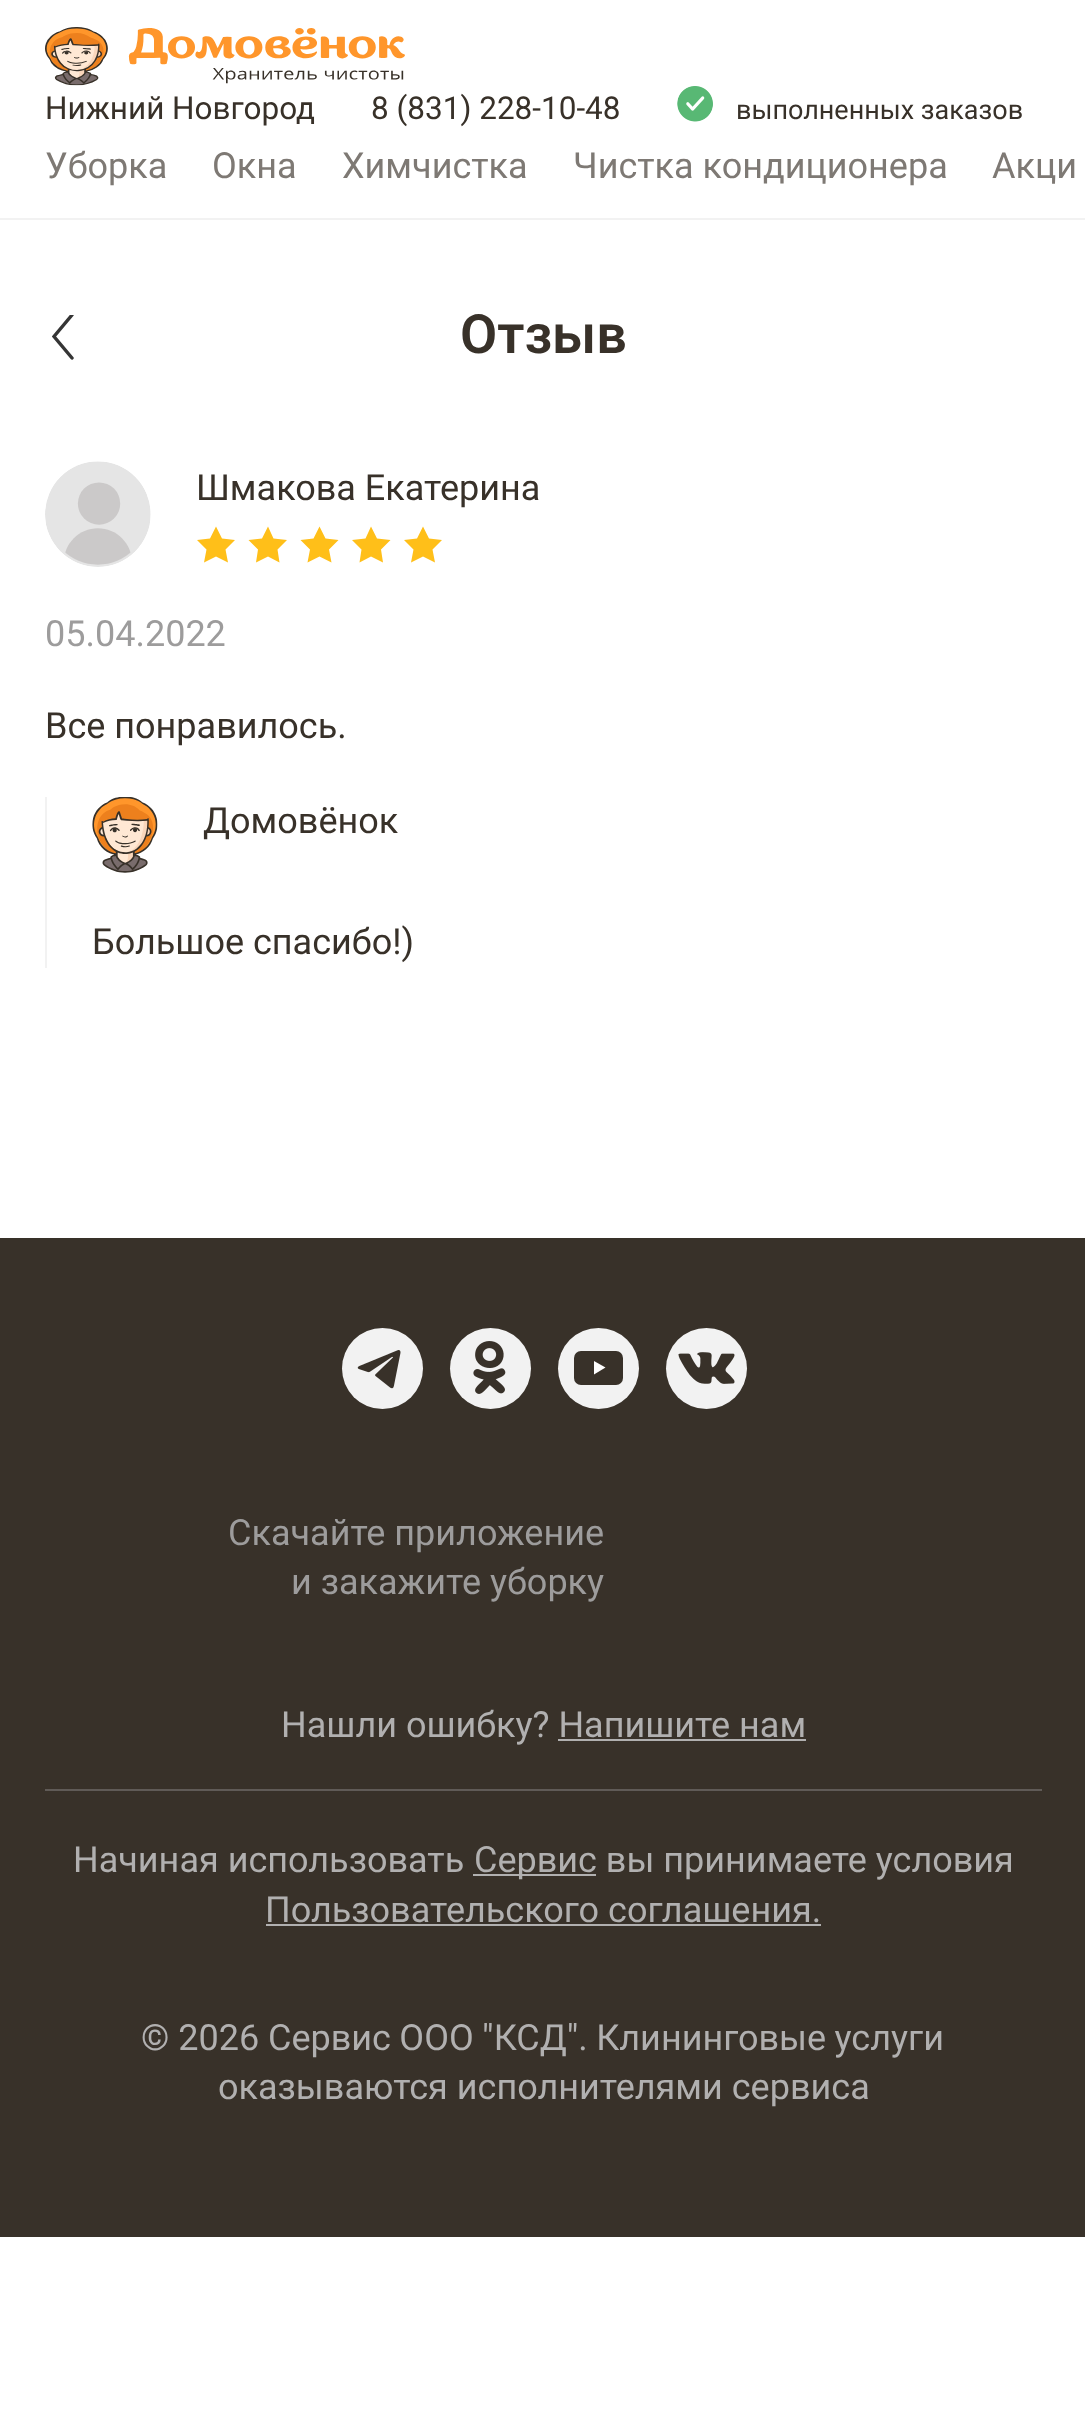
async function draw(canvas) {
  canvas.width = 1085;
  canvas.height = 2433;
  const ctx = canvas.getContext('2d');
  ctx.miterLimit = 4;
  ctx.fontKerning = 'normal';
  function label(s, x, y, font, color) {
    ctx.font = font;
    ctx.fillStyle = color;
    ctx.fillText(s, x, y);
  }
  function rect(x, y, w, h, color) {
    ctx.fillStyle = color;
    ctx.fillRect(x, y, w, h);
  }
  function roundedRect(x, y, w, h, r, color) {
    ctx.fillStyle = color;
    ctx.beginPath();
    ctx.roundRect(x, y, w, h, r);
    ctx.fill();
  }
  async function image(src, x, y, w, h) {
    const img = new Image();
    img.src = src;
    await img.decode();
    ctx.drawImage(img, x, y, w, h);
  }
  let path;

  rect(0, 0, 1085, 2433, '#fff');
  await image('assets/img1.png', 45, 27, 360, 59);
  label('Нижний Новгород', 45, 119, '31.5px Roboto', '#383129');
  label('8 (831) 228-10-48', 371, 119, '31.5px Roboto', '#383129');
  await image('assets/img2.png', 677, 86, 36, 36);
  label('выполненных заказов', 736, 119, '27px Roboto', '#383129');
  label('Уборка', 45, 178, '36px Roboto', '#7e7974');
  label('Окна', 212, 178, '36px Roboto', '#7e7974');
  label('Химчистка', 342, 178, '36px Roboto', '#7e7974');
  label('Чистка кондиционера', 573, 178, '36px Roboto', '#7e7974');
  label('Акци', 992, 178, '36px Roboto', '#7e7974');
  rect(0, 218, 1085, 2, '#f2f2f2');
  ctx.save();
  ctx.beginPath();
  ctx.rect(52, 315, 22, 45);
  ctx.clip();
  path = new Path2D('M72 358L54 336.5L72 315');
  ctx.strokeStyle = '#353535';
  ctx.lineWidth = 3.4;
  ctx.lineCap = 'round';
  ctx.stroke(path);
  ctx.restore();
  label('Отзыв', 460, 353, '600 54px Roboto', '#383129');
  await image('assets/img3.png', 45, 461, 106, 106);
  label('Шмакова Екатерина', 196, 500, '36px Roboto', '#383129');
  ctx.fillStyle = '#ffbf19';
  path = new Path2D('M216 556.5L204 562.5L206.5 549.5L197 540L210 538.5L216 526.5L222 538.5L235 540L225.5 549.5L228 562.5Z');
  ctx.fill(path);
  path = new Path2D('M268 556.5L256 562.5L258 549.5L248.5 540L262 538.5L268 526.5L273.5 538.5L287 540L277.5 549.5L279.5 562.5Z');
  ctx.fill(path);
  path = new Path2D('M319.5 556.5L307.5 562.5L310 549.5L300.5 540L313.5 538.5L319.5 526.5L325.5 538.5L338.5 540L329 549.5L331.5 562.5Z');
  ctx.fill(path);
  path = new Path2D('M371 556.5L359.5 562.5L361.5 549.5L352 540L365.5 538.5L371 526.5L377 538.5L390.5 540L381 549.5L383 562.5Z');
  ctx.fill(path);
  path = new Path2D('M423 556.5L411 562.5L413.5 549.5L404 540L417 538.5L423 526.5L429 538.5L442 540L432.5 549.5L435 562.5Z');
  ctx.fill(path);
  label('05.04.2022', 45, 646, '36px Roboto', '#9d9c9c');
  label('Все понравилось.', 45, 738, '36px Roboto', '#383129');
  rect(45, 797, 2, 171, '#f2f2f2');
  await image('assets/img4.png', 92, 797, 66, 76);
  label('Домовёнок', 203, 833, '36px Roboto', '#383129');
  label('Большое спасибо!)', 92, 954, '36px Roboto', '#383129');
  rect(0, 1238, 1085, 999, '#383129');
  ctx.fillStyle = '#f2f2f2';
  ctx.beginPath();
  ctx.arc(382.5, 1368.5, 40.5, 0, 2 * Math.PI);
  ctx.fill();
  await image('assets/img5.png', 357, 1350, 44, 39);
  ctx.beginPath();
  ctx.arc(490.5, 1368.5, 40.5, 0, 2 * Math.PI);
  ctx.fill();
  await image('assets/img6.png', 473, 1341, 33, 53);
  ctx.beginPath();
  ctx.arc(598.5, 1368.5, 40.5, 0, 2 * Math.PI);
  ctx.fill();
  roundedRect(574, 1351, 49, 34, 7, '#383129');
  ctx.fillStyle = '#fff';
  path = new Path2D('M594 1368V1361L605.5 1367.5L594 1374.5Z');
  ctx.fill(path);
  ctx.fillStyle = '#f2f2f2';
  ctx.beginPath();
  ctx.arc(706.5, 1368.5, 40.5, 0, 2 * Math.PI);
  ctx.fill();
  await image('assets/img7.png', 678, 1352, 57, 32);
  label('Скачайте приложение', 228, 1545, '36px Roboto', '#9d9c9c');
  label('и закажите уборку', 291, 1594, '36px Roboto', '#9d9c9c');
  label('Нашли ошибку? Напишите нам', 281, 1737, '36px Roboto', '#b1b0b0');
  rect(558, 1739, 248, 2, '#b1b0b0');
  rect(45, 1789, 997, 2, '#605b57');
  label('Начиная использовать', 73, 1872, '36px Roboto', '#b1b0b0');
  rect(473, 1874, 123, 2, '#b1b0b0');
  label('Сервис вы принимаете условия', 474, 1872, '36px Roboto', '#b1b0b0');
  label('Пользовательского соглашения.', 265, 1922, '36px Roboto', '#b1b0b0');
  rect(266, 1924, 555, 2, '#b1b0b0');
  label('© 2026', 141, 2050, '36px Roboto', '#b1b0b0');
  ctx.wordSpacing = '-0.5px';
  label('Cервис ООО "КСД". Клининговые услуги', 268, 2050, '36px Roboto', '#b1b0b0');
  ctx.wordSpacing = '0px';
  label('оказываются исполнителями сервиса', 218, 2099, '36px Roboto', '#b1b0b0');
}

draw(document.querySelector('canvas'));
